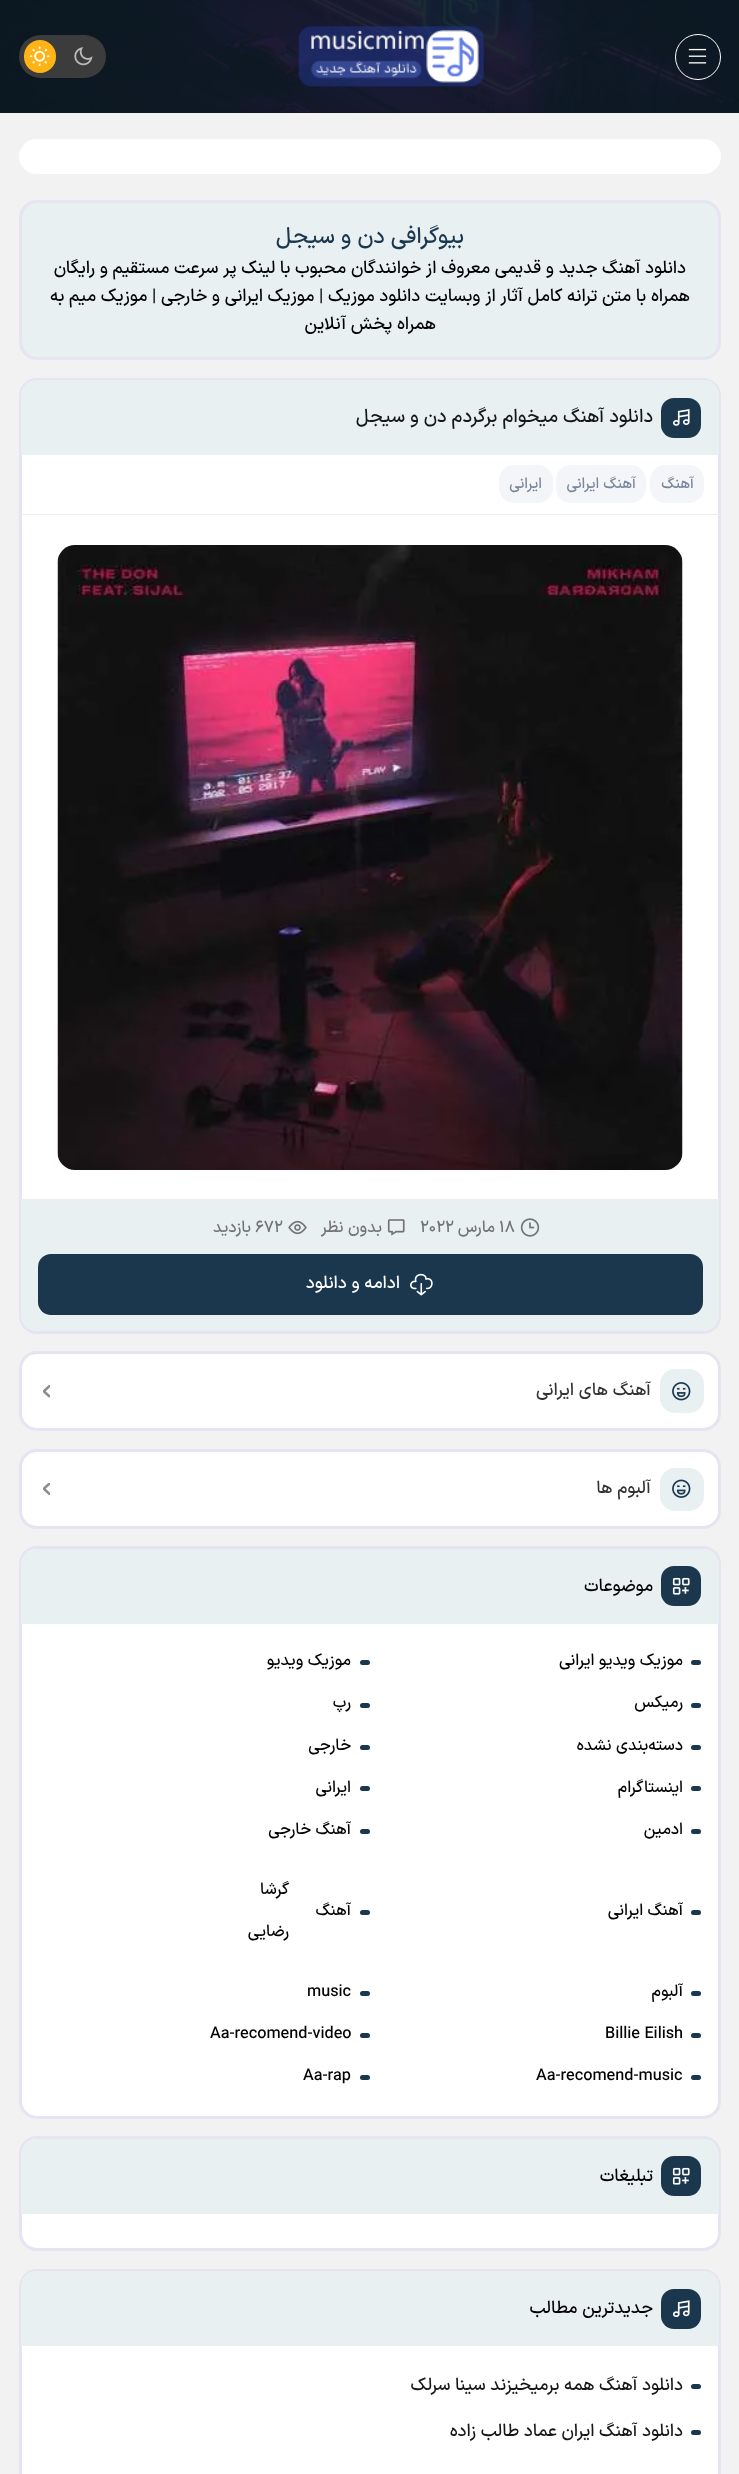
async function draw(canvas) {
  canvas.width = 739;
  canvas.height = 2474;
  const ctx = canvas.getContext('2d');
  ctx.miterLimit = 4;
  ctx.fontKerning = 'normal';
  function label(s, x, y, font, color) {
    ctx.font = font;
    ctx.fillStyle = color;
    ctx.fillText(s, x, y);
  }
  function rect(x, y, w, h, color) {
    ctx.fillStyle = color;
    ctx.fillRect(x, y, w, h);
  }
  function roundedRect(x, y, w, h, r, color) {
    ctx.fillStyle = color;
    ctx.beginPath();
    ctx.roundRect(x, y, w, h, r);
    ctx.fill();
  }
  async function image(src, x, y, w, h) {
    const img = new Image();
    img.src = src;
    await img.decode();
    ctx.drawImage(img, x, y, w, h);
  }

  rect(0, 0, 739, 2474, '#f2f2f2');
  rect(0, 112, 739, 1, '#0d1924');
  await image('assets/img1.png', 0, 0, 739, 113);
  ctx.beginPath();
  ctx.arc(698, 57, 22.5, 0, 2 * Math.PI);
  ctx.strokeStyle = '#fff';
  ctx.stroke();
  await image('assets/img2.png', 688, 48, 19, 16);
  await image('assets/img3.png', 298, 26, 186, 61);
  roundedRect(19, 35, 87, 43, 21.5, '#3c3c3c');
  roundedRect(24, 40, 32, 33, 16, '#feb416');
  await image('assets/img4.png', 74, 47, 19, 19);
  await image('assets/img5.png', 29, 46, 21, 21);
  roundedRect(19, 139, 702, 35, 17.5, '#fff');
  ctx.fillStyle = '#e8f0f2';
  ctx.beginPath();
  ctx.roundRect(20.5, 201.5, 699, 157, 16.5);
  ctx.fill();
  ctx.strokeStyle = '#e6e4f0';
  ctx.lineWidth = 3;
  ctx.stroke();
  ctx.direction = 'rtl';
  label('بیوگرافی دن و سیجل', 464, 243, '500 22.5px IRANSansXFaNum', '#1a374d');
  label('دانلود آهنگ جدید و قدیمی معروف از خوانندگان محبوب با لینک پر سرعت مستقیم و رایگان', 686, 273, '500 17.5px IRANSansXFaNum', '#000');
  label('همراه با متن ترانه کامل', 690, 301, '500 17.5px IRANSansXFaNum', '#000');
  label('آثار از وبسایت دانلود موزیک | موزیک ایرانی و خارجی | موزیک میم به', 523, 301, '500 17.5px IRANSansXFaNum', '#000');
  label('همراه پخش آنلاین', 436, 329, '500 17.5px IRANSansXFaNum', '#000');
  ctx.fillStyle = '#fff';
  ctx.beginPath();
  ctx.roundRect(20.5, 379.5, 699, 953, 16.5);
  ctx.fill();
  ctx.stroke();
  ctx.fillStyle = '#e8f0f2';
  ctx.beginPath();
  ctx.roundRect(21, 380, 698, 75, [15, 15, 0, 0]);
  ctx.fill();
  roundedRect(661, 398, 40, 40, 13, '#1a374d');
  await image('assets/img6.png', 673, 409, 17, 17);
  label('دانلود آهنگ میخوام برگردم دن و سیجل', 653, 422, '500 18.75px IRANSansXFaNum', '#161616');
  rect(21, 514, 698, 1, '#eee');
  roundedRect(650, 465, 54, 38, 15, '#f3f5f9');
  label('آهنگ', 694, 488, '500 15px IRANSansXFaNum', '#7a859a');
  roundedRect(556, 465, 90, 38, 15, '#f3f5f9');
  label('آهنگ ایرانی', 636, 488, '500 15px IRANSansXFaNum', '#7a859a');
  roundedRect(499, 465, 54, 38, 15, '#f3f5f9');
  label('ایرانی', 542, 488, '500 15px IRANSansXFaNum', '#7a859a');
  await image('assets/img7.png', 57, 545, 626, 625);
  ctx.fillStyle = '#e8f0f2';
  ctx.beginPath();
  ctx.roundRect(21, 1199, 698, 132, [0, 0, 15, 15]);
  ctx.fill();
  await image('assets/img8.png', 520, 1218, 20, 19);
  ctx.direction = 'ltr';
  label('18', 499, 1232, '500 16.25px IRANSansXFaNum', '#737373');
  ctx.direction = 'rtl';
  label('مارس', 495, 1232, '500 16.25px IRANSansXFaNum', '#737373');
  ctx.direction = 'ltr';
  label('2022', 420, 1232, '500 16.25px IRANSansXFaNum', '#737373');
  await image('assets/img9.png', 387, 1219, 18, 17);
  ctx.direction = 'rtl';
  label('بدون نظر', 382, 1232, '500 16.25px IRANSansXFaNum', '#737373');
  await image('assets/img10.png', 288, 1220, 19, 15);
  ctx.direction = 'ltr';
  label('672', 255, 1232, '500 16.25px IRANSansXFaNum', '#737373');
  ctx.direction = 'rtl';
  label('بازدید', 251, 1232, '500 16.25px IRANSansXFaNum', '#737373');
  roundedRect(38, 1254, 665, 61, 13, '#1a374d');
  await image('assets/img11.png', 410, 1273, 23, 23);
  label('ادامه و دانلود', 400, 1288, '500 17.5px IRANSansXFaNum', '#fff');
  ctx.beginPath();
  ctx.roundRect(20.5, 1352.5, 699, 77, 16.5);
  ctx.fill();
  ctx.stroke();
  roundedRect(660, 1369, 44, 44, 15, '#e8f0f2');
  await image('assets/img12.png', 672, 1382, 19, 19);
  label('آهنگ های ایرانی', 651, 1395, '500 17.5px IRANSansXFaNum', '#333');
  await image('assets/img13.png', 43, 1385, 7, 13);
  ctx.fillStyle = '#fff';
  ctx.beginPath();
  ctx.roundRect(20.5, 1450.5, 699, 77, 16.5);
  ctx.fill();
  ctx.stroke();
  roundedRect(660, 1468, 44, 43, 15, '#e8f0f2');
  await image('assets/img14.png', 672, 1479, 19, 19);
  label('آلبوم ها', 651, 1493, '500 17.5px IRANSansXFaNum', '#333');
  await image('assets/img15.png', 43, 1483, 7, 12);
  ctx.fillStyle = '#fff';
  ctx.beginPath();
  ctx.roundRect(20.5, 1547.5, 699, 570, 16.5);
  ctx.fill();
  ctx.stroke();
  ctx.fillStyle = '#e8f0f2';
  ctx.beginPath();
  ctx.roundRect(21, 1549, 698, 75, [15, 15, 0, 0]);
  ctx.fill();
  roundedRect(661, 1566, 40, 40, 13, '#1a374d');
  await image('assets/img16.png', 672, 1577, 18, 18);
  label('موضوعات', 653, 1591, '500 17.5px IRANSansXFaNum', '#000');
  roundedRect(691, 1660, 10, 5, 2.5, '#1a374d');
  label('موزیک ویدیو ایرانی', 683, 1665, '500 16.25px IRANSansXFaNum', '#000');
  roundedRect(360, 1660, 10, 5, 2.5, '#1a374d');
  label('موزیک ویدیو', 351, 1665, '500 16.25px IRANSansXFaNum', '#000');
  roundedRect(691, 1703, 10, 5, 2.5, '#1a374d');
  label('رمیکس', 683, 1707, '500 16.25px IRANSansXFaNum', '#000');
  roundedRect(360, 1703, 10, 5, 2.5, '#1a374d');
  label('رپ', 351, 1707, '500 16.25px IRANSansXFaNum', '#000');
  roundedRect(691, 1745, 10, 5, 2.5, '#1a374d');
  label('دسته‌بندی نشده', 683, 1750, '500 16.25px IRANSansXFaNum', '#000');
  roundedRect(360, 1745, 10, 5, 2.5, '#1a374d');
  label('خارجی', 351, 1750, '500 16.25px IRANSansXFaNum', '#000');
  roundedRect(691, 1786, 10, 5, 2.5, '#1a374d');
  label('اینستاگرام', 683, 1792, '500 16.25px IRANSansXFaNum', '#000');
  roundedRect(360, 1786, 10, 5, 2.5, '#1a374d');
  label('ایرانی', 351, 1792, '500 16.25px IRANSansXFaNum', '#000');
  roundedRect(691, 1829, 10, 5, 2.5, '#1a374d');
  label('ادمین', 683, 1834, '500 16.25px IRANSansXFaNum', '#000');
  roundedRect(360, 1829, 10, 5, 2.5, '#1a374d');
  label('آهنگ خارجی', 351, 1834, '500 16.25px IRANSansXFaNum', '#000');
  roundedRect(691, 1910, 10, 5, 2.5, '#1a374d');
  label('آهنگ ایرانی', 683, 1915, '500 16.25px IRANSansXFaNum', '#000');
  roundedRect(360, 1910, 10, 5, 2.5, '#1a374d');
  label('آهنگ', 351, 1915, '500 16.25px IRANSansXFaNum', '#000');
  label('گرشا', 289, 1894, '500 16.25px IRANSansXFaNum', '#000');
  label('رضایی', 289, 1936, '500 16.25px IRANSansXFaNum', '#000');
  roundedRect(691, 1991, 10, 5, 2.5, '#1a374d');
  label('آلبوم', 683, 1996, '500 16.25px IRANSansXFaNum', '#000');
  roundedRect(360, 1991, 10, 5, 2.5, '#1a374d');
  ctx.direction = 'ltr';
  label('music', 307, 1996, '500 16.25px IRANSansXFaNum', '#000');
  roundedRect(691, 2033, 10, 5, 2.5, '#1a374d');
  label('Billie Eilish', 605, 2038, '500 16.25px IRANSansXFaNum', '#000');
  roundedRect(360, 2033, 10, 5, 2.5, '#1a374d');
  label('Aa-recomend-video', 210, 2038, '500 16.25px IRANSansXFaNum', '#000');
  roundedRect(691, 2075, 10, 5, 2.5, '#1a374d');
  label('Aa-recomend-music', 536, 2080, '500 16.25px IRANSansXFaNum', '#000');
  roundedRect(360, 2075, 10, 5, 2.5, '#1a374d');
  label('Aa-rap', 303, 2080, '500 16.25px IRANSansXFaNum', '#000');
  ctx.fillStyle = '#fff';
  ctx.beginPath();
  ctx.roundRect(20.5, 2137.5, 699, 112, 16.5);
  ctx.fill();
  ctx.stroke();
  ctx.fillStyle = '#e8f0f2';
  ctx.beginPath();
  ctx.roundRect(21, 2139, 698, 75, [15, 15, 0, 0]);
  ctx.fill();
  roundedRect(661, 2156, 40, 40, 13, '#1a374d');
  await image('assets/img16.png', 672, 2167, 18, 18);
  ctx.direction = 'rtl';
  label('تبلیغات', 653, 2181, '500 17.5px IRANSansXFaNum', '#000');
  ctx.fillStyle = '#fff';
  ctx.beginPath();
  ctx.roundRect(20.5, 2270.5, 699, 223, 16.5);
  ctx.fill();
  ctx.stroke();
  ctx.fillStyle = '#e8f0f2';
  ctx.beginPath();
  ctx.roundRect(21, 2271, 698, 75, [15, 15, 0, 0]);
  ctx.fill();
  roundedRect(661, 2289, 40, 40, 13, '#1a374d');
  await image('assets/img17.png', 672, 2300, 18, 18);
  label('جدیدترین مطالب', 653, 2313, '500 17.5px IRANSansXFaNum', '#000');
  roundedRect(691, 2384, 10, 5, 2.5, '#1a374d');
  label('دانلود آهنگ همه برمیخیزند سینا سرلک', 683, 2390, '500 17.5px IRANSansXFaNum', '#161616');
  roundedRect(691, 2430, 10, 5, 2.5, '#1a374d');
  label('دانلود آهنگ ایران عماد طالب زاده', 683, 2436, '500 17.5px IRANSansXFaNum', '#161616');
}

draw(document.querySelector('canvas'));
